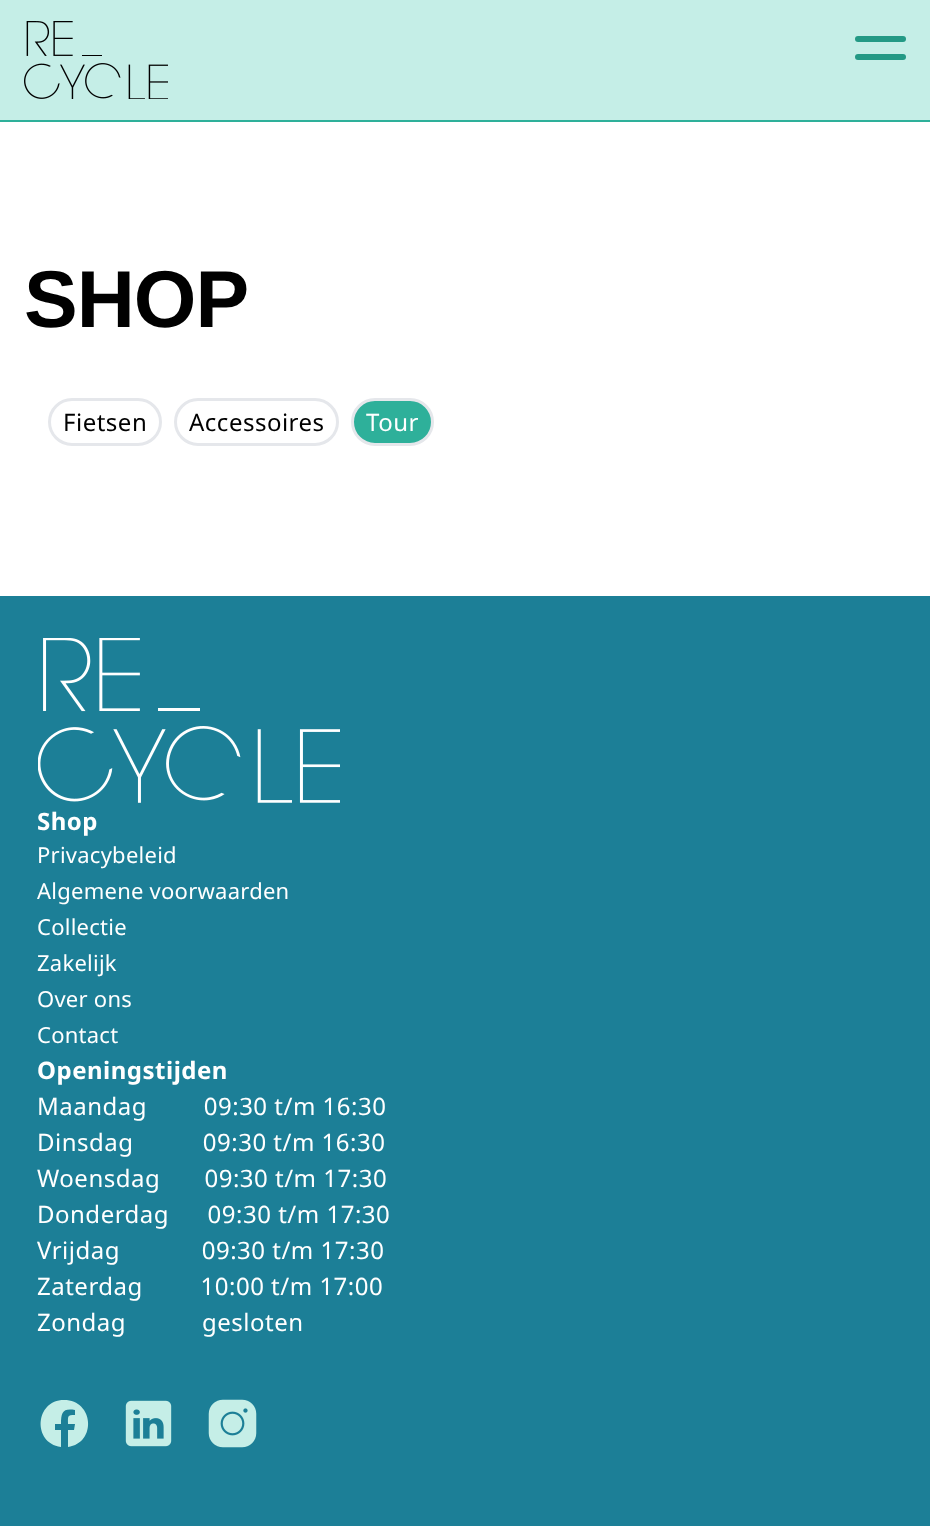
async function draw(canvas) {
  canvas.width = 930;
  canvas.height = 1526;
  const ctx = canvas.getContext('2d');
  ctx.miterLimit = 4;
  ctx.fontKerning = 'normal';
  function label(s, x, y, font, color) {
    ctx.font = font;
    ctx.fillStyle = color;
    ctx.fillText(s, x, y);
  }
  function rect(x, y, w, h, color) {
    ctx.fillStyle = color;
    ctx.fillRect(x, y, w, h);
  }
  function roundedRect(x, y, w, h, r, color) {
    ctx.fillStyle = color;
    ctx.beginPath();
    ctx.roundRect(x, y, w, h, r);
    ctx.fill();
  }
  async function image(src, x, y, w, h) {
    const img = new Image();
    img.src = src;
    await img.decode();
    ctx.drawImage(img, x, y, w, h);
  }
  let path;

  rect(0, 0, 930, 1526, '#fff');
  rect(0, 120, 930, 2, '#2eb09a');
  rect(0, 0, 930, 120, '#c5eee7');
  await image('assets/img1.png', 24, 21, 144, 78);
  roundedRect(855, 36, 51, 6, 3, '#239985');
  roundedRect(855, 54, 51, 6, 3, '#239985');
  ctx.letterSpacing = '-1px';
  label('SHOP', 24, 327, 'bold 80.5px Liberation Sans', '#000');
  ctx.beginPath();
  ctx.roundRect(49.5, 399.5, 111, 45, 22.5);
  ctx.strokeStyle = '#e5e7eb';
  ctx.lineWidth = 3;
  ctx.stroke();
  ctx.letterSpacing = '0.5px';
  label('Fietsen', 63, 431, '24px Noto Sans', '#000');
  ctx.beginPath();
  ctx.roundRect(175.5, 399.5, 162, 45, 22.5);
  ctx.stroke();
  label('Accessoires', 189, 431, '24px Noto Sans', '#000');
  ctx.fillStyle = '#2eb09a';
  ctx.beginPath();
  ctx.roundRect(352.5, 399.5, 80, 45, 22.5);
  ctx.fill();
  ctx.stroke();
  label('Tour', 366, 431, '24px Noto Sans', '#fff');
  rect(0, 596, 930, 930, '#1c7f97');
  await image('assets/img2.png', 38, 638, 302, 165);
  label('Shop', 37, 830, 'bold 24px Noto Sans', '#fff');
  ctx.letterSpacing = '0.25px';
  label('Privacybeleid', 37, 863, '22px Noto Sans', '#fff');
  label('Algemene voorwaarden', 37, 899, '22px Noto Sans', '#fff');
  label('Collectie', 37, 935, '22px Noto Sans', '#fff');
  label('Zakelijk', 37, 971, '22px Noto Sans', '#fff');
  label('Over ons', 37, 1007, '22px Noto Sans', '#fff');
  label('Contact', 37, 1043, '22px Noto Sans', '#fff');
  ctx.letterSpacing = '0.5px';
  label('Openingstijden', 37, 1079, 'bold 24px Noto Sans', '#fff');
  label('Maandag     09:30 t/m 16:30', 37, 1115, '24px Noto Sans', '#fff');
  label('Dinsdag      09:30 t/m 16:30', 37, 1151, '24px Noto Sans', '#fff');
  label('Woensdag    09:30 t/m 17:30', 37, 1187, '24px Noto Sans', '#fff');
  label('Donderdag    09:30 t/m 17:30', 37, 1223, '24px Noto Sans', '#fff');
  label('Vrijdag       09:30 t/m 17:30', 37, 1259, '24px Noto Sans', '#fff');
  label('Zaterdag      10:00 t/m 17:00', 37, 1295, '24px Noto Sans', '#fff');
  label('Zondag       gesloten', 37, 1331, '24px Noto Sans', '#fff');
  ctx.fillStyle = '#c5eee7';
  path = new Path2D('M64 1400C35 1400 32 1443 61 1447V1430H55V1424H61C61 1412 63 1408 75 1410V1415C67 1415 68 1416 68 1424H75L74 1430H68V1447C97 1443 94 1400 64 1400Z');
  ctx.fill(path);
  await image('assets/img3.png', 125, 1400, 47, 47);
  await image('assets/img4.png', 208, 1399, 49, 49);
}

draw(document.querySelector('canvas'));
